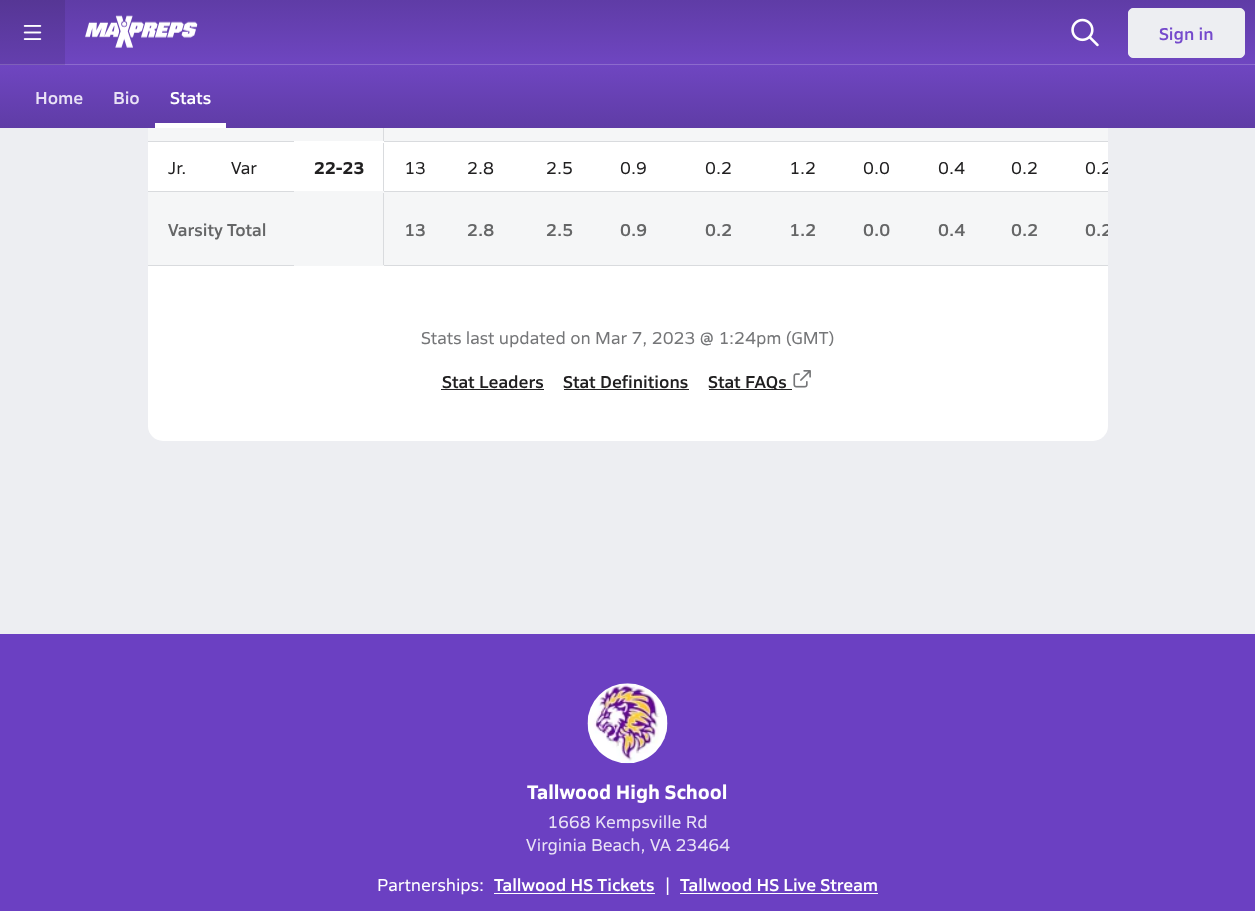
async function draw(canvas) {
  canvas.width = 1255;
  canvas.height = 911;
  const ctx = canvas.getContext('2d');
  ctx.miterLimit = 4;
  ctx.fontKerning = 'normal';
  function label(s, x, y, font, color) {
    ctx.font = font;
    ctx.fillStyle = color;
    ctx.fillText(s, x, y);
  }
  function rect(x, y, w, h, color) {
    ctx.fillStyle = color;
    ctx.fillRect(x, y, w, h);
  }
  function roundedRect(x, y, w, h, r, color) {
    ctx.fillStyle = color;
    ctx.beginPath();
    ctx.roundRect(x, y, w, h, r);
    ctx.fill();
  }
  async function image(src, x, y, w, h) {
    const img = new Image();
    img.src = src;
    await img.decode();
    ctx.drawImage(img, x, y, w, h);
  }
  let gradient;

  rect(0, 0, 1255, 911, '#edeef2');
  roundedRect(148, -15, 960, 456, 15, '#fff');
  gradient = ctx.createLinearGradient(628, 0, 628, 65);
  gradient.addColorStop(0, '#5f3ca6');
  gradient.addColorStop(1, '#6f46c1');
  ctx.fillStyle = gradient;
  ctx.fillRect(65, 0, 1190, 64);
  gradient = ctx.createLinearGradient(628, 0, 628, 65);
  gradient.addColorStop(0, '#563695');
  gradient.addColorStop(1, '#643fae');
  ctx.fillStyle = gradient;
  ctx.fillRect(0, 0, 65, 64);
  await image('assets/img1.png', 23, 25, 19, 15);
  await image('assets/img2.png', 85, 15, 113, 33);
  await image('assets/img3.png', 1071, 18, 28, 29);
  ctx.fillStyle = '#edeef2';
  ctx.beginPath();
  ctx.roundRect(1128.5, 8.5, 116, 49, 4.5);
  ctx.fill();
  ctx.strokeStyle = '#edeef2';
  ctx.stroke();
  label('Sign in', 1159, 40, '600 17.5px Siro', '#754acc');
  rect(65, 64, 1190, 1, '#8c6bcd');
  rect(0, 64, 65, 1, '#7e60b9');
  gradient = ctx.createLinearGradient(628, 65, 628, 128);
  gradient.addColorStop(0, '#6f46c1');
  gradient.addColorStop(1, '#5f3ca6');
  ctx.fillStyle = gradient;
  ctx.fillRect(0, 65, 1255, 63);
  label('Home', 35, 104, '600 17.5px Siro', '#e9e2f6');
  label('Bio', 113, 104, '600 17.5px Siro', '#e9e2f6');
  label('Stats', 170, 104, '600 17.5px Siro', '#fff');
  rect(155, 123, 71, 5, '#fff');
  rect(148, 141, 960, 1, '#d9dbde');
  rect(148, 128, 235, 13, '#f5f6f7');
  rect(383, 128, 1, 13, '#d9dbde');
  rect(384, 128, 724, 13, '#f5f6f7');
  label('Jr.', 168, 174, '17.5px Siro', '#212021');
  label('Var', 231, 174, '17.5px Siro', '#212021');
  rect(294, 141, 90, 1, '#fff');
  label('22-23', 314, 174, 'bold 17.5px Siro', '#212021');
  rect(383, 143, 1, 48, '#d9dbde');
  label('13', 404, 174, '17.5px Siro', '#212021');
  label('2.8', 467, 174, '17.5px Siro', '#212021');
  label('2.5', 546, 174, '17.5px Siro', '#212021');
  label('0.9', 620, 174, '17.5px Siro', '#212021');
  label('0.2', 705, 174, '17.5px Siro', '#212021');
  label('1.2', 789, 174, '17.5px Siro', '#212021');
  label('0.0', 863, 174, '17.5px Siro', '#212021');
  label('0.4', 938, 174, '17.5px Siro', '#212021');
  label('0.2', 1011, 174, '17.5px Siro', '#212021');
  ctx.save();
  ctx.beginPath();
  ctx.rect(148, 68, 960, 198);
  ctx.clip();
  label('0.2', 1085, 174, '17.5px Siro', '#212021');
  ctx.restore();
  rect(148, 191, 960, 1, '#d9dbde');
  rect(148, 265, 960, 1, '#d9dbde');
  rect(148, 192, 146, 73, '#f5f6f7');
  label('Varsity Total', 168, 236, '600 17.5px Siro', '#656667');
  rect(294, 191, 90, 75, '#f5f6f7');
  rect(383, 193, 1, 72, '#d9dbde');
  rect(384, 192, 724, 73, '#f5f6f7');
  label('13', 404, 236, '600 17.5px Siro', '#656667');
  label('2.8', 467, 236, '600 17.5px Siro', '#656667');
  label('2.5', 546, 236, '600 17.5px Siro', '#656667');
  label('0.9', 620, 236, '600 17.5px Siro', '#656667');
  label('0.2', 705, 236, '600 17.5px Siro', '#656667');
  label('1.2', 789, 236, '600 17.5px Siro', '#656667');
  label('0.0', 863, 236, '600 17.5px Siro', '#656667');
  label('0.4', 938, 236, '600 17.5px Siro', '#656667');
  label('0.2', 1011, 236, '600 17.5px Siro', '#656667');
  ctx.save();
  ctx.beginPath();
  ctx.rect(148, 68, 960, 198);
  ctx.clip();
  label('0.2', 1085, 236, '600 17.5px Siro', '#656667');
  ctx.restore();
  label('Stats last updated on Mar 7, 2023 @ 1:24pm (GMT)', 421, 344, '17.5px Siro', '#757678');
  label('Stat Leaders', 442, 388, '600 17.5px Siro', '#212021');
  rect(441, 389, 103, 1, '#212021');
  label('Stat Definitions', 563, 388, '600 17.5px Siro', '#212021');
  rect(564, 389, 125, 1, '#212021');
  rect(709, 389, 83, 1, '#212021');
  label('Stat FAQs', 708, 388, '600 17.5px Siro', '#212021');
  await image('assets/img4.png', 793, 370, 18, 18);
  rect(0, 634, 1255, 277, '#6b40c2');
  await image('assets/img5.png', 587, 683, 81, 81);
  label('Tallwood High School', 527, 799, 'bold 20px Siro', '#fff');
  label('1668 Kempsville Rd', 547, 828, '17.5px Siro', '#e9e2f6');
  label('Virginia Beach, VA 23464', 526, 851, '17.5px Siro', '#e9e2f6');
  label('Partnerships:', 377, 891, '17.5px Siro', '#fff');
  label('Tallwood HS Tickets', 494, 891, '600 17.5px Siro', '#fff');
  rect(494, 893, 161, 1, '#fff');
  label('|', 665, 891, '17.5px Siro', '#fff');
  label('Tallwood HS Live Stream', 680, 891, '600 17.5px Siro', '#fff');
  rect(680, 893, 198, 1, '#fff');
}

draw(document.querySelector('canvas'));
